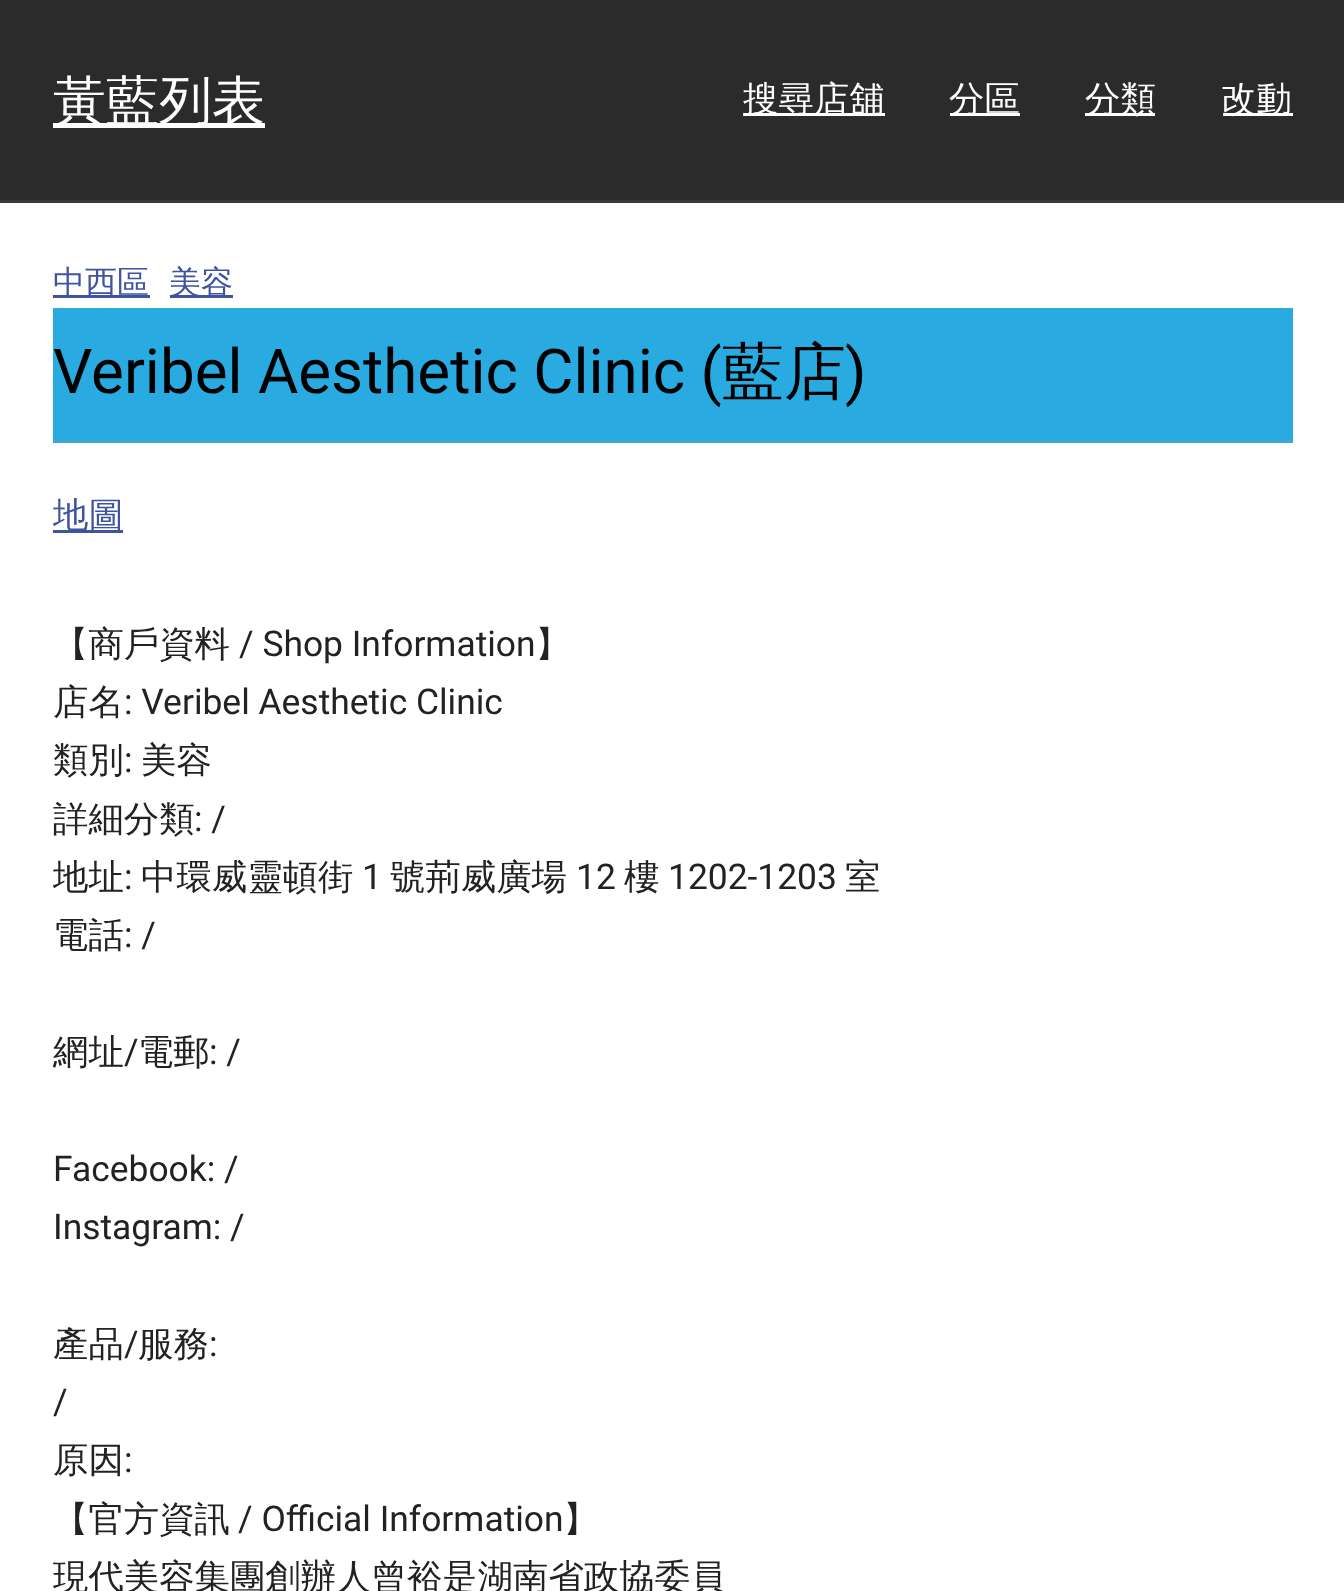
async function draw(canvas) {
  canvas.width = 1344;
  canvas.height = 1591;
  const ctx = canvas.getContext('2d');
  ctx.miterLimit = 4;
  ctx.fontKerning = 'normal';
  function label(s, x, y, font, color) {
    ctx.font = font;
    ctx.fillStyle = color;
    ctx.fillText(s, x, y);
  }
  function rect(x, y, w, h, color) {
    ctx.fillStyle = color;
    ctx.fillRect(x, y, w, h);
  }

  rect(0, 0, 1344, 1591, '#fff');
  rect(0, 0, 1344, 200, '#2b2b2b');
  rect(0, 200, 1344, 3, '#393939');
  rect(53, 123, 212, 5, '#fff');
  label('黃藍列表', 53, 119, '500 53px WenQuanYi Zen Hei', '#fff');
  rect(743, 113, 142, 3, '#fff');
  label('搜尋店舖', 743, 111, '500 35.4px WenQuanYi Zen Hei', '#fff');
  rect(950, 113, 70, 3, '#fff');
  label('分區', 949, 111, '500 35.4px WenQuanYi Zen Hei', '#fff');
  rect(1085, 113, 70, 3, '#fff');
  label('分類', 1085, 111, '500 35.4px WenQuanYi Zen Hei', '#fff');
  rect(1223, 113, 70, 3, '#fff');
  label('改動', 1221, 111, '500 35.4px WenQuanYi Zen Hei', '#fff');
  rect(53, 295, 97, 3, '#3f549e');
  label('中西區', 53, 293, '500 32px WenQuanYi Zen Hei', '#3f549e');
  rect(170, 295, 63, 3, '#3f549e');
  label('美容', 169, 293, '500 32px WenQuanYi Zen Hei', '#3f549e');
  rect(53, 308, 1240, 132, '#29aae1');
  rect(53, 440, 1240, 3, '#3fa5d1');
  label('Veribel Aesthetic Clinic (', 53, 393, '61.9px Roboto', '#000');
  label('藍店', 722, 393, '500 61.9px WenQuanYi Zen Hei', '#000');
  label(')', 845, 393, '61.9px Roboto', '#000');
  rect(53, 530, 70, 3, '#3f549e');
  label('地圖', 53, 527, '500 35.4px WenQuanYi Zen Hei', '#3f549e');
  label('【商戶資料', 53, 656, '500 35.4px WenQuanYi Zen Hei', '#222');
  label('/ Shop Information', 239, 656, '35.4px Roboto', '#222');
  label('】', 535, 656, '500 35.4px WenQuanYi Zen Hei', '#222');
  label('店名', 53, 714, '500 35.4px WenQuanYi Zen Hei', '#222');
  label(': Veribel Aesthetic Clinic', 124, 714, '35.4px Roboto', '#222');
  label('類別', 53, 772, '500 35.4px WenQuanYi Zen Hei', '#222');
  label(':', 124, 772, '35.4px Roboto', '#222');
  label('美容', 141, 772, '500 35.4px WenQuanYi Zen Hei', '#222');
  label('詳細分類', 53, 831, '500 35.4px WenQuanYi Zen Hei', '#222');
  label(': /', 194, 831, '35.4px Roboto', '#222');
  label('地址', 53, 889, '500 35.4px WenQuanYi Zen Hei', '#222');
  label(':', 124, 889, '35.4px Roboto', '#222');
  label('中環威靈頓街', 141, 889, '500 35.4px WenQuanYi Zen Hei', '#222');
  label('1', 362, 889, '35.4px Roboto', '#222');
  label('號荊威廣場', 390, 889, '500 35.4px WenQuanYi Zen Hei', '#222');
  label('12', 576, 889, '35.4px Roboto', '#222');
  label('樓', 624, 889, '500 35.4px WenQuanYi Zen Hei', '#222');
  label('1202-1203', 668, 889, '35.4px Roboto', '#222');
  label('室', 845, 889, '500 35.4px WenQuanYi Zen Hei', '#222');
  label('電話', 53, 947, '500 35.4px WenQuanYi Zen Hei', '#222');
  label(': /', 124, 947, '35.4px Roboto', '#222');
  label('網址', 53, 1064, '500 35.4px WenQuanYi Zen Hei', '#222');
  label('/', 124, 1064, '35.4px Roboto', '#222');
  label('電郵', 138, 1064, '500 35.4px WenQuanYi Zen Hei', '#222');
  label(': /', 209, 1064, '35.4px Roboto', '#222');
  label('Facebook: /', 53, 1181, '35.4px Roboto', '#222');
  label('Instagram: /', 53, 1239, '35.4px Roboto', '#222');
  label('產品', 53, 1356, '500 35.4px WenQuanYi Zen Hei', '#222');
  label('/', 124, 1356, '35.4px Roboto', '#222');
  label('服務', 138, 1356, '500 35.4px WenQuanYi Zen Hei', '#222');
  label(':', 209, 1356, '35.4px Roboto', '#222');
  label('/', 53, 1414, '35.4px Roboto', '#222');
  label('原因', 53, 1472, '500 35.4px WenQuanYi Zen Hei', '#222');
  label(':', 124, 1472, '35.4px Roboto', '#222');
  label('【官方資訊', 53, 1531, '500 35.4px WenQuanYi Zen Hei', '#222');
  label('/ Official Information', 238, 1531, '35.4px Roboto', '#222');
  label('】', 563, 1531, '500 35.4px WenQuanYi Zen Hei', '#222');
  label('現代美容集團創辦人曾裕是湖南省政協委員', 53, 1589, '500 35.4px WenQuanYi Zen Hei', '#222');
}

draw(document.querySelector('canvas'));
